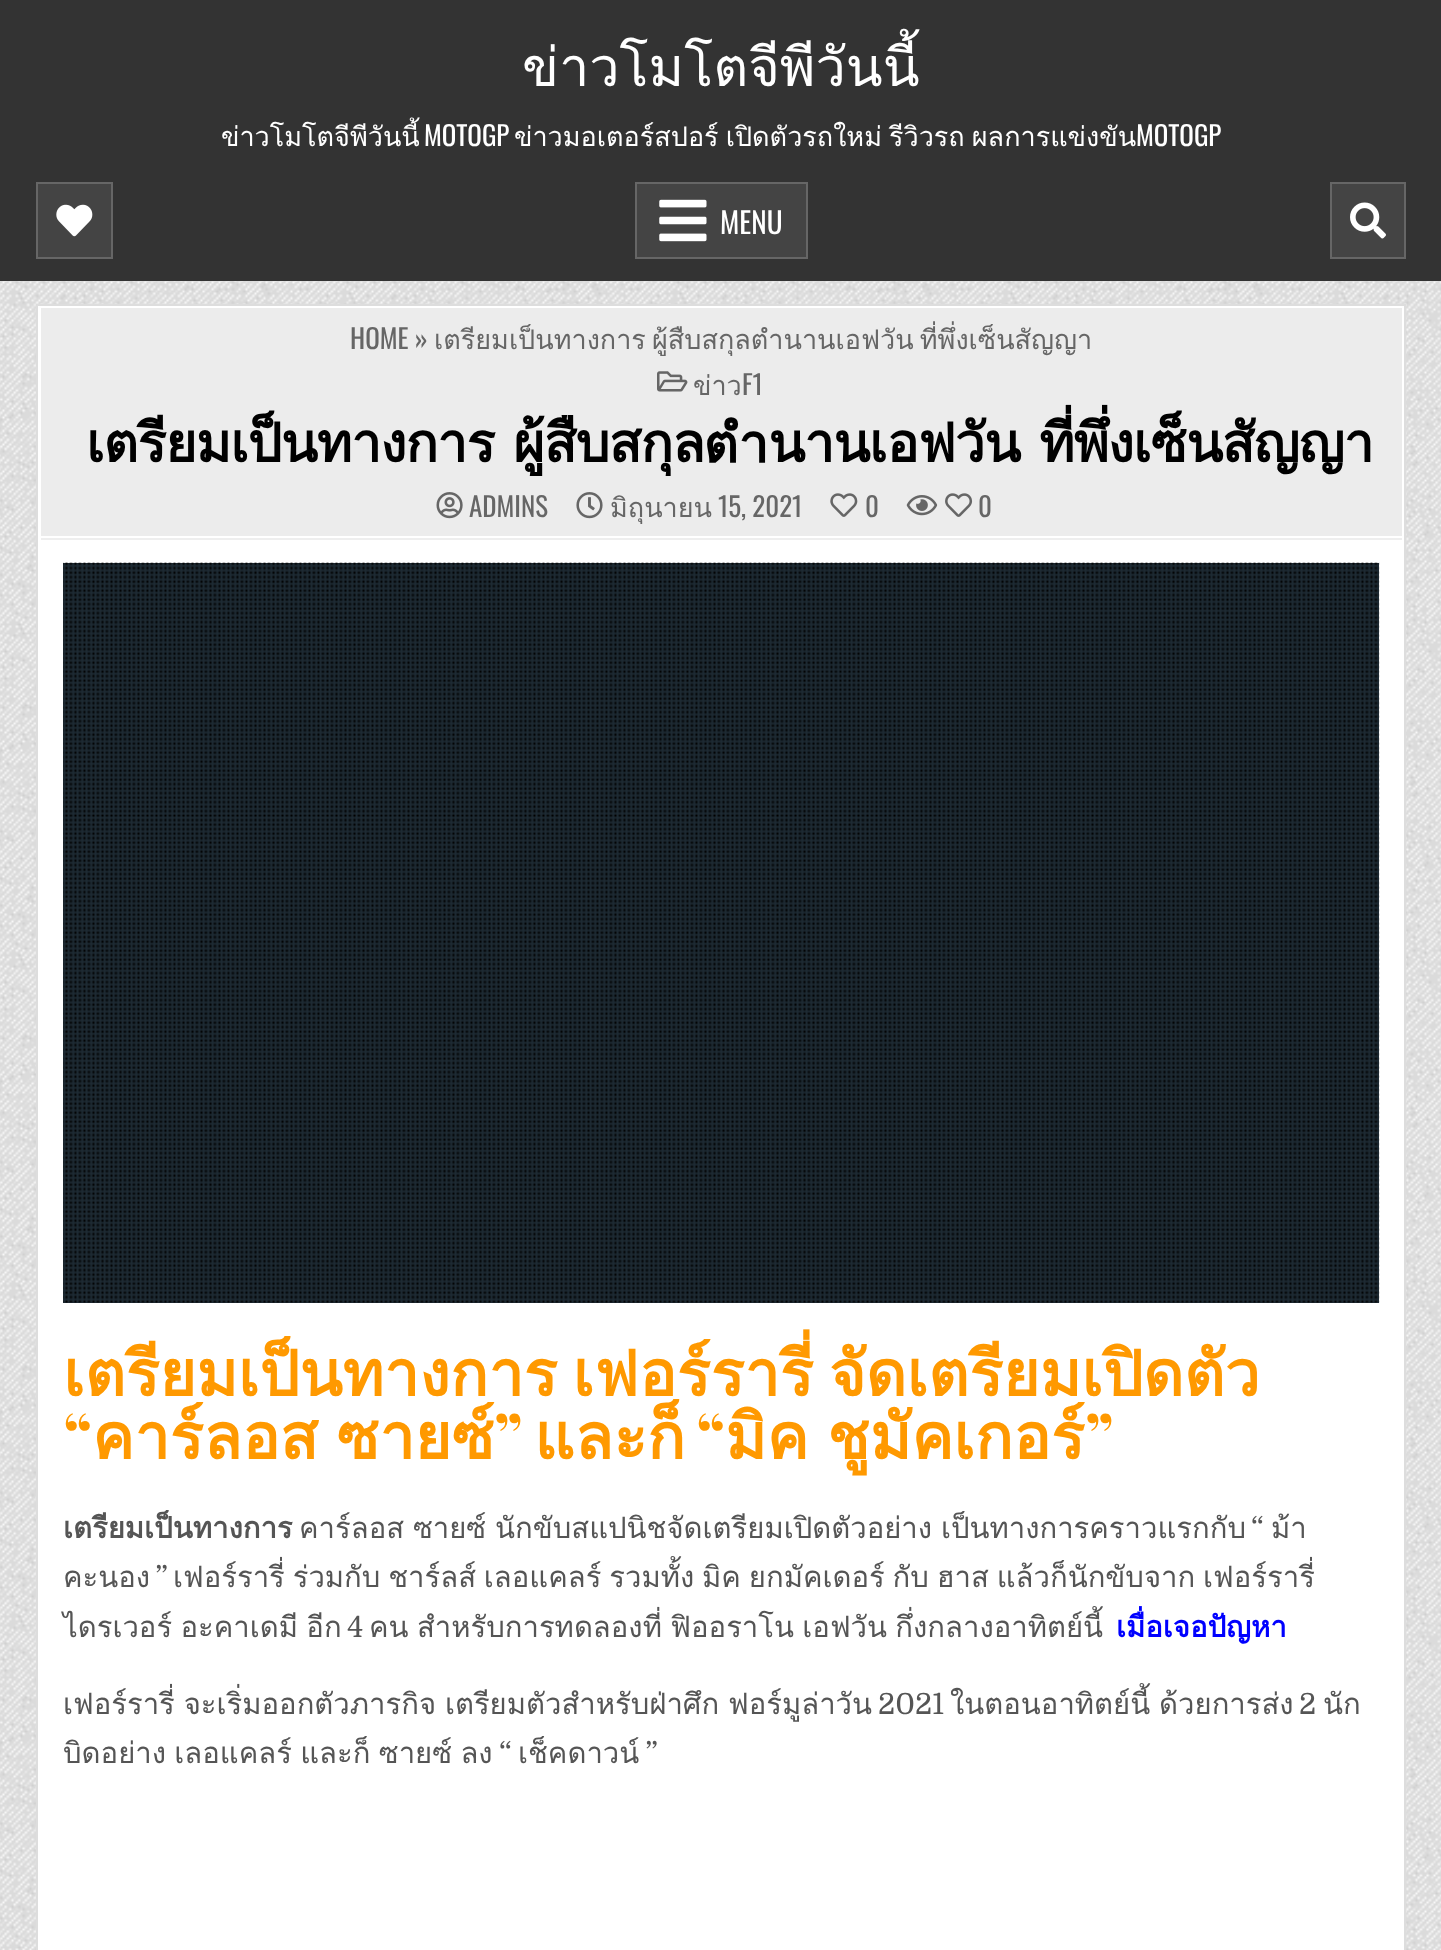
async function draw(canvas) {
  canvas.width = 1441;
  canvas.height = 1950;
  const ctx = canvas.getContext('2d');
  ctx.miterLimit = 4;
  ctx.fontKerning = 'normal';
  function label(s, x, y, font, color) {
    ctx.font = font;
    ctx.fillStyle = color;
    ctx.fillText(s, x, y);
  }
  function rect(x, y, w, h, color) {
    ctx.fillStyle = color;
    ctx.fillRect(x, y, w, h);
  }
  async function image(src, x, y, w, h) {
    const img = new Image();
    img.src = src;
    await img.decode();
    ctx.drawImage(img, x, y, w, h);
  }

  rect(0, 0, 1441, 1950, '#fff');
  await image('assets/img1.png', 0, 281, 1441, 1669);
  rect(0, 0, 1441, 281, '#333');
  label('ข่าวโมโตจีพีวันนี้', 522, 86, '54px Loma', '#fff');
  label('ข่าวโมโตจีพีวันนี้', 221, 146, '27px Loma', '#fff');
  label('MOTOGP', 424, 146, '27px Oswald', '#fff');
  ctx.wordSpacing = '-2px';
  label('ข่าวมอเตอร์สปอร์ เปิดตัวรถใหม่ รีวิวรถ ผลการแข่งขัน', 514, 146, '27px Loma', '#fff');
  ctx.wordSpacing = '0px';
  label('MOTOGP', 1136, 146, '27px Oswald', '#fff');
  ctx.fillStyle = '#444';
  ctx.beginPath();
  ctx.rect(37, 183, 75, 75);
  ctx.fill();
  ctx.strokeStyle = '#666';
  ctx.lineWidth = 2;
  ctx.stroke();
  await image('assets/img2.png', 56, 204, 37, 33);
  ctx.beginPath();
  ctx.rect(636, 183, 171, 75);
  ctx.fill();
  ctx.stroke();
  await image('assets/img3.png', 659, 199, 48, 43);
  label('MENU', 720, 234, '29.25px Oswald', '#fff');
  ctx.fillStyle = '#444';
  ctx.beginPath();
  ctx.rect(1331, 183, 74, 75);
  ctx.fill();
  ctx.stroke();
  await image('assets/img4.png', 1350, 202, 36, 37);
  ctx.fillStyle = '#fff';
  ctx.beginPath();
  ctx.rect(37, 305, 1368, 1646);
  ctx.fill();
  ctx.strokeStyle = '#ddd';
  ctx.stroke();
  rect(41, 308, 1361, 228, '#ececec');
  rect(41, 538, 1361, 2, '#eee');
  label('HOME »', 350, 349, '27px Oswald', '#666');
  ctx.wordSpacing = '-3px';
  label('เตรียมเป็นทางการ ผู้สืบสกุลตำนานเอฟวัน ที่พึ่งเซ็นสัญญา', 434, 349, '27px Loma', '#666');
  await image('assets/img5.png', 657, 371, 31, 21);
  ctx.wordSpacing = '0px';
  label('ข่าว', 693, 395, '27px Loma', '#666');
  label('F1', 742, 395, '27px Oswald', '#666');
  ctx.letterSpacing = '-1.12px';
  ctx.wordSpacing = '2px';
  label('เตรียมเป็นทางการ ผู้สืบสกุลตำนานเอฟวัน ที่พึ่งเซ็นสัญญา', 86, 462, 'bold 54px Loma', '#000');
  await image('assets/img6.png', 436, 492, 27, 27);
  ctx.letterSpacing = '0px';
  ctx.wordSpacing = '0px';
  label('ADMINS', 469, 517, '27px Oswald', '#666');
  await image('assets/img7.png', 576, 492, 27, 27);
  label('มิถุนายน', 610, 517, '27px Loma', '#666');
  label('15, 2021', 718, 517, '27px Oswald', '#666');
  await image('assets/img8.png', 830, 493, 28, 24);
  label('0', 865, 517, '27px Oswald', '#666');
  await image('assets/img9.png', 906, 495, 32, 21);
  await image('assets/img10.png', 945, 493, 28, 24);
  label('0', 978, 517, '27px Oswald', '#666');
  rect(63, 563, 1316, 740, '#1e2b34');
  await image('assets/img11.png', 63, 562, 1317, 741);
  ctx.wordSpacing = '-6px';
  label('เตรียมเป็นทางการ เฟอร์รารี่ จัดเตรียมเปิดตัว', 63, 1396, 'bold 63px Loma', '#f90');
  ctx.wordSpacing = '0px';
  label('“', 63, 1459, 'bold 63px Playfair Display', '#f90');
  ctx.wordSpacing = '-3px';
  label('คาร์ลอส ซายซ์', 92, 1459, 'bold 63px Loma', '#f90');
  ctx.wordSpacing = '0px';
  label('”', 494, 1459, 'bold 63px Playfair Display', '#f90');
  label('และก็', 534, 1459, 'bold 63px Loma', '#f90');
  label('“', 696, 1459, 'bold 63px Playfair Display', '#f90');
  ctx.wordSpacing = '-3px';
  label('มิค ชูมัคเกอร์', 725, 1459, 'bold 63px Loma', '#f90');
  ctx.wordSpacing = '0px';
  label('”', 1085, 1459, 'bold 63px Playfair Display', '#f90');
  label('เตรียมเป็นทางการ', 63, 1538, 'bold 29.25px Loma', '#555');
  ctx.wordSpacing = '-1px';
  label('คาร์ลอส ซายซ์ นักขับสแปนิชจัดเตรียมเปิดตัวอย่าง เป็นทางการคราวแรกกับ', 299, 1538, '29.25px Loma', '#555');
  ctx.wordSpacing = '0px';
  label('“', 1251, 1538, '29.25px Domine', '#555');
  label('ม้า', 1271, 1538, '29.25px Loma', '#555');
  label('”', 155, 1587, '29.25px Domine', '#555');
  ctx.wordSpacing = '-2px';
  label('เฟอร์รารี่ ร่วมกับ ชาร์ลส์ เลอแคลร์ รวมทั้ง มิค ยกมัคเดอร์ กับ ฮาส แล้วก็นักขับจาก เฟอร์รารี่', 173, 1587, '29.25px Loma', '#555');
  ctx.wordSpacing = '0px';
  label('คะนอง', 63, 1587, '29.25px Loma', '#555');
  ctx.wordSpacing = '-1.5px';
  label('ไดรเวอร์ อะคาเดมี อีก', 63, 1637, '29.25px Loma', '#555');
  ctx.wordSpacing = '0px';
  label('4', 347, 1637, '29.25px Domine', '#555');
  ctx.wordSpacing = '-1.5px';
  label('คน สำหรับการทดลองที่ ฟิออราโน เอฟวัน กึ่งกลางอาทิตย์นี้', 369, 1637, '29.25px Loma', '#555');
  ctx.wordSpacing = '0px';
  label('เมื่อเจอปัญหา', 1116, 1637, 'bold 29.25px Loma', '#00f');
  ctx.wordSpacing = '-1px';
  label('เฟอร์รารี่ จะเริ่มออกตัวภารกิจ เตรียมตัวสำหรับฝ่าศึก ฟอร์มูล่าวัน', 63, 1714, '29.25px Loma', '#555');
  ctx.wordSpacing = '0px';
  label('2021', 878, 1714, '29.25px Domine', '#555');
  ctx.wordSpacing = '-1px';
  label('ในตอนอาทิตย์นี้ ด้วยการส่ง', 950, 1714, '29.25px Loma', '#555');
  ctx.wordSpacing = '0px';
  label('2', 1299, 1714, '29.25px Domine', '#555');
  label('นัก', 1323, 1714, '29.25px Loma', '#555');
  ctx.wordSpacing = '-1.5px';
  label('บิดอย่าง เลอแคลร์ และก็ ซายซ์ ลง', 63, 1763, '29.25px Loma', '#555');
  ctx.wordSpacing = '0px';
  label('“', 499, 1763, '29.25px Domine', '#555');
  label('เช็คดาวน์', 518, 1763, '29.25px Loma', '#555');
  label('”', 645, 1763, '29.25px Domine', '#555');
}

draw(document.querySelector('canvas'));
